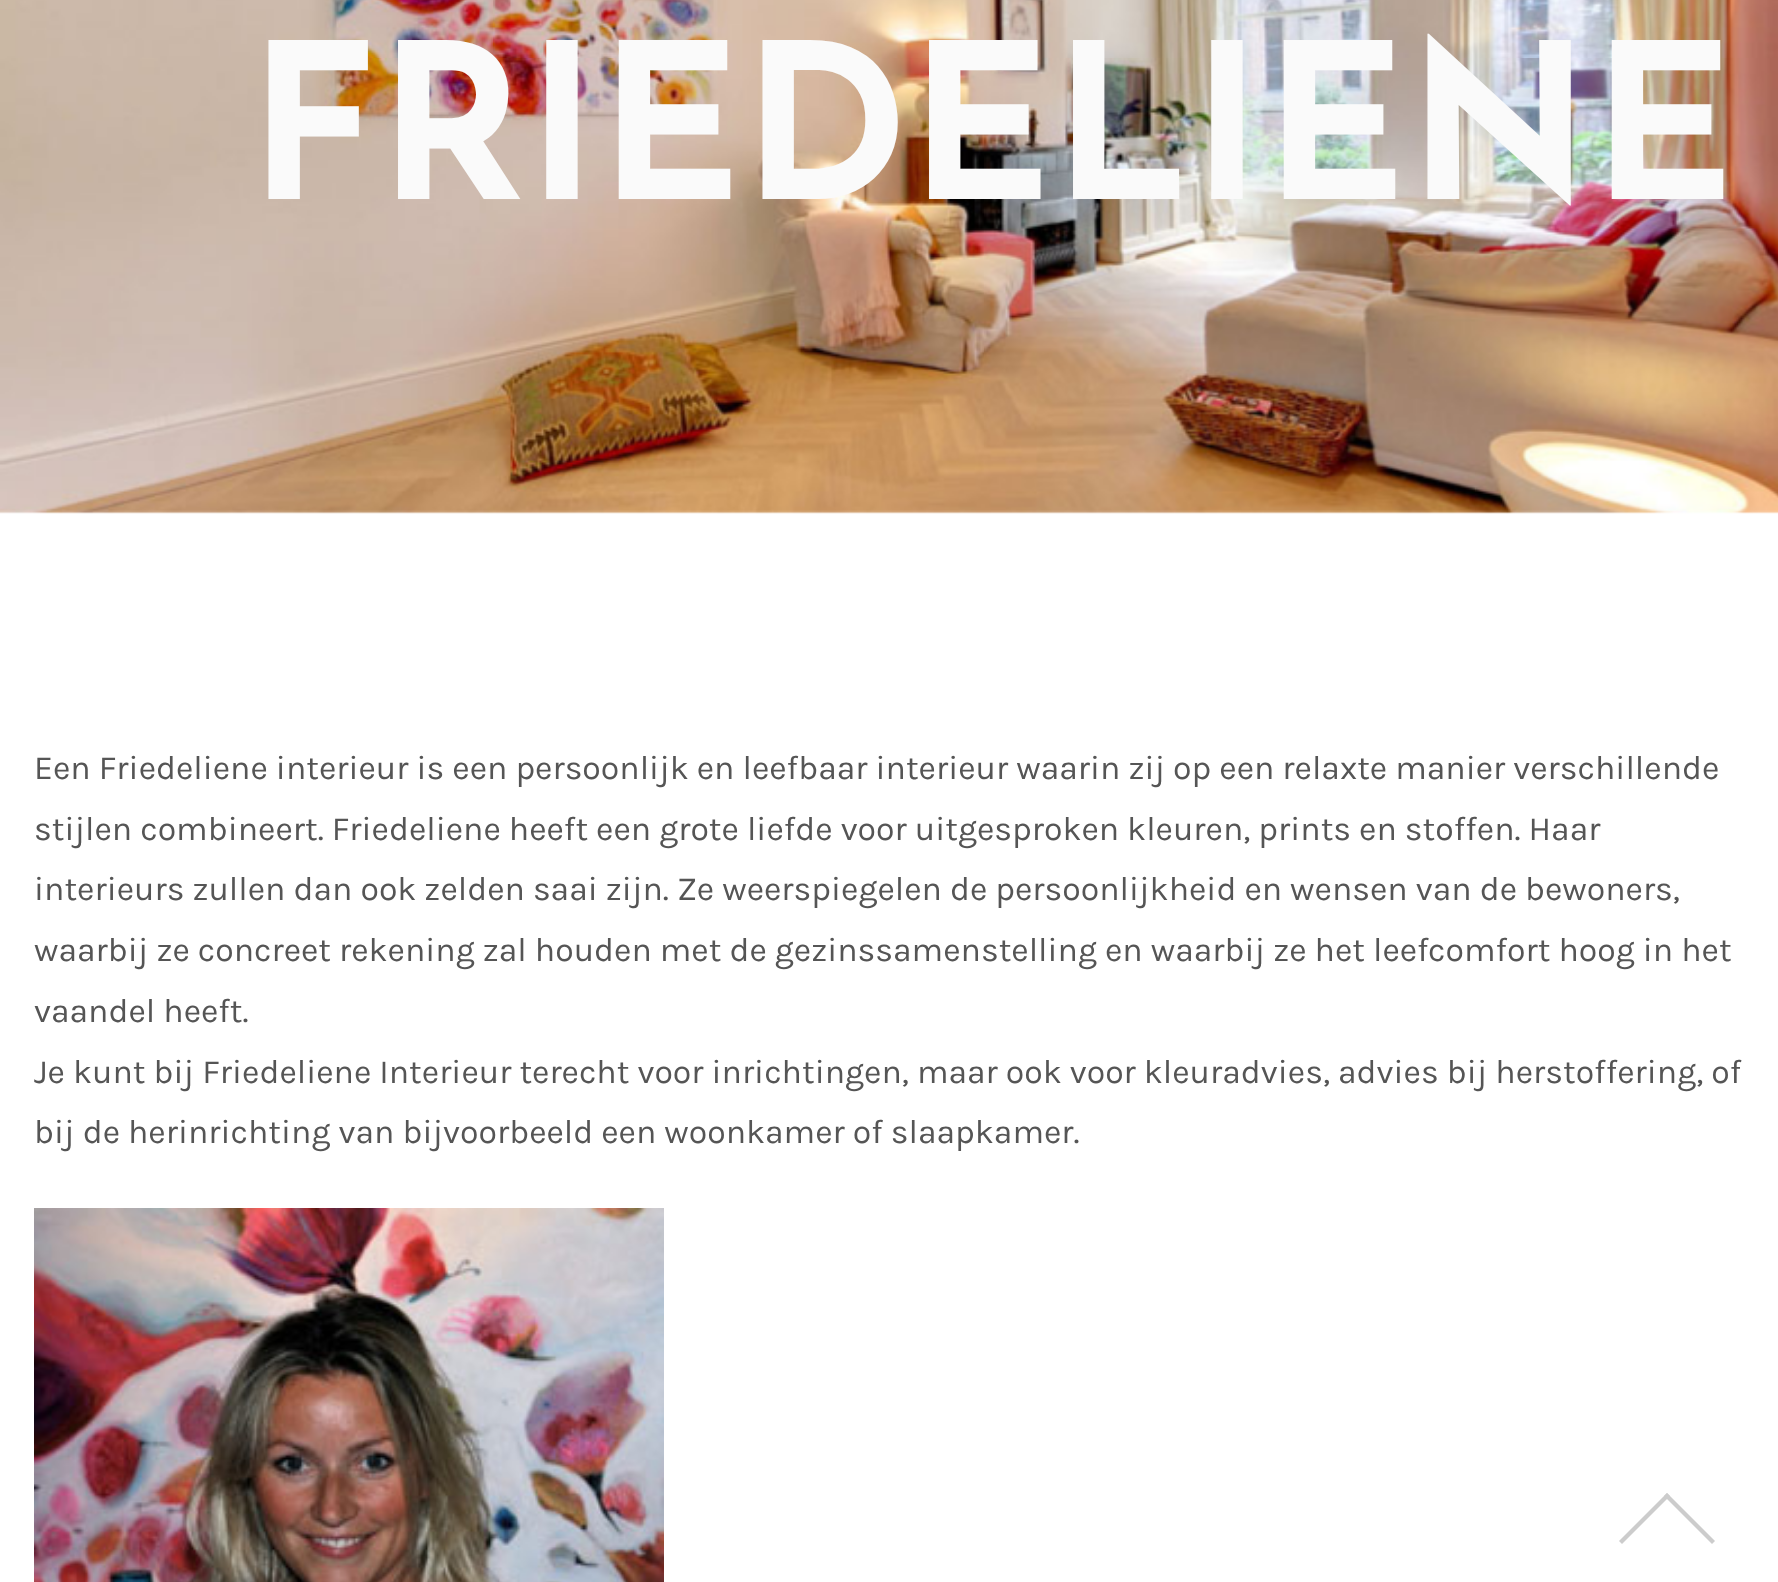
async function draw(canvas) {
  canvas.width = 1778;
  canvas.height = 1582;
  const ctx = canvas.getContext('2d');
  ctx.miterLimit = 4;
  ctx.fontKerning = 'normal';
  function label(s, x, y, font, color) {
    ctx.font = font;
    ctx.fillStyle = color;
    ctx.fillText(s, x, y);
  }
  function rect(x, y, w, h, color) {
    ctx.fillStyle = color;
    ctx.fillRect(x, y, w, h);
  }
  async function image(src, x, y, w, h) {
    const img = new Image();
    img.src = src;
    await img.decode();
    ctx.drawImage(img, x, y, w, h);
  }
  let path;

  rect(0, 0, 1778, 1582, '#fff');
  await image('assets/img1.png', 0, 0, 1778, 514);
  label('FRIEDELIENE', 248, 199, 'bold 216px Josefin Sans', '#fafafa');
  label('Een Friedeliene interieur is een persoonlijk en leefbaar interieur waarin zij op een relaxte manier verschillende', 34, 779, '33.75px Karla', '#555');
  label('stijlen combineert. Friedeliene heeft een grote liefde voor uitgesproken kleuren, prints en stoffen. Haar', 34, 840, '33.75px Karla', '#555');
  label('interieurs zullen dan ook zelden saai zijn. Ze weerspiegelen de persoonlijkheid en wensen van de bewoners,', 34, 900, '33.75px Karla', '#555');
  label('waarbij ze concreet rekening zal houden met de gezinssamenstelling en waarbij ze het leefcomfort hoog in het', 34, 961, '33.75px Karla', '#555');
  label('vaandel heeft.', 34, 1022, '33.75px Karla', '#555');
  label('Je kunt bij Friedeliene Interieur terecht voor inrichtingen, maar ook voor kleuradvies, advies bij herstoffering, of', 34, 1083, '33.75px Karla', '#555');
  label('bij de herinrichting van bijvoorbeeld een woonkamer of slaapkamer.', 34, 1143, '33.75px Karla', '#555');
  await image('assets/img2.png', 34, 1208, 630, 374);
  ctx.fillStyle = '#ccc';
  path = new Path2D('M1619 1541L1667 1493L1670 1496L1622 1544Z');
  ctx.fill(path);
  path = new Path2D('M1667 1493L1715 1541L1712 1544L1664 1496Z');
  ctx.fill(path);
}

draw(document.querySelector('canvas'));
